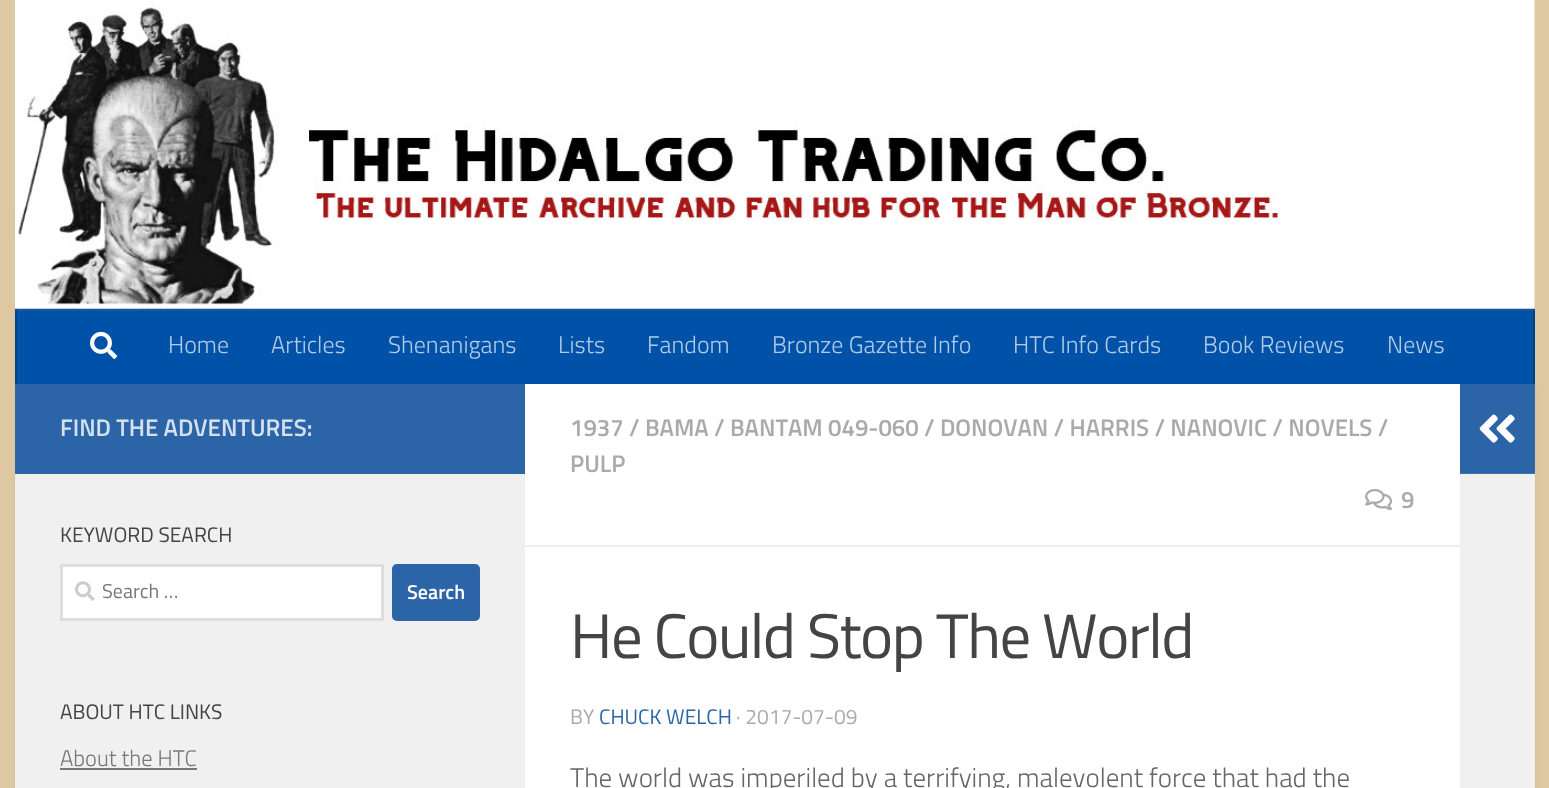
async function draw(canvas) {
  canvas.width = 1549;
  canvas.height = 788;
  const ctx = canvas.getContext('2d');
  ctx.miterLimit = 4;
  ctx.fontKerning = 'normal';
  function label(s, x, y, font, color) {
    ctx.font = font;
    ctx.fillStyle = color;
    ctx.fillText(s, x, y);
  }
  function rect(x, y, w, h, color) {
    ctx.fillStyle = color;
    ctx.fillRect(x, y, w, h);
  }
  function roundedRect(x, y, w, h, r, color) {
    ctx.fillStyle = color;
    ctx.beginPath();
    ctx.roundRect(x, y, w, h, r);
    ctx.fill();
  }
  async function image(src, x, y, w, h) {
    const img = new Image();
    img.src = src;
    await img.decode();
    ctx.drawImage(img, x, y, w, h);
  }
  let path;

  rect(0, 0, 1549, 788, '#ddc8a1');
  await image('assets/img1.png', 0, 474, 15, 314);
  ctx.fillStyle = '#0000001a';
  ctx.filter = 'blur(1px)';
  ctx.beginPath();
  ctx.rect(15, 386, 1520, 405);
  ctx.fill();
  ctx.filter = 'none';
  rect(14, 385, 1522, 89, '#ddc8a1');
  await image('assets/img2.png', 15, 0, 1520, 309);
  ctx.fillStyle = '#00000033';
  path = new Path2D('M15 308V309H1534V383H1535V308Z');
  ctx.fill(path);
  rect(17, 309, 1516, 75, '#0052a8');
  rect(1533, 309, 2, 75, '#004286');
  rect(15, 309, 2, 75, '#004286');
  rect(15, 309, 1520, 2, '#ffffff0d');
  await image('assets/img3.png', 90, 331, 27, 28);
  label('Home', 168, 353, '300 24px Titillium', '#b3cbe5');
  label('Articles', 271, 353, '300 24px Titillium', '#b3cbe5');
  label('Shenanigans', 388, 353, '300 24px Titillium', '#b3cbe5');
  label('Lists', 558, 353, '300 24px Titillium', '#b3cbe5');
  label('Fandom', 647, 353, '300 24px Titillium', '#b3cbe5');
  label('Bronze Gazette Info', 772, 353, '300 24px Titillium', '#b3cbe5');
  label('HTC Info Cards', 1013, 353, '300 24px Titillium', '#b3cbe5');
  label('Book Reviews', 1203, 353, '300 24px Titillium', '#b3cbe5');
  label('News', 1387, 353, '300 24px Titillium', '#b3cbe5');
  rect(525, 384, 935, 404, '#fff');
  rect(15, 384, 510, 90, '#2b65a8');
  label('FIND THE ADVENTURES:', 60, 436, '600 24px Titillium', '#d5e0ee');
  rect(15, 474, 510, 314, '#f0f0f0');
  label('KEYWORD SEARCH', 60, 542, '21px Titillium', '#444');
  ctx.fillStyle = '#fff';
  ctx.beginPath();
  ctx.rect(61.5, 565.5, 321, 54);
  ctx.fill();
  ctx.strokeStyle = '#ddd';
  ctx.lineWidth = 3;
  ctx.stroke();
  await image('assets/img4.png', 75, 581, 20, 20);
  label('Search …', 102, 598, '20px Titillium', '#777');
  roundedRect(392, 564, 88, 57, 5, '#2b65a8');
  label('Search', 407, 599, '600 20px Titillium', '#fff');
  label('ABOUT HTC LINKS', 60, 719, '21px Titillium', '#444');
  label('About the HTC', 60, 766, '300 22.5px Titillium', '#777');
  rect(60, 768, 137, 2, '#777');
  rect(525, 545, 935, 2, '#eee');
  label('1937 / BAMA / BANTAM 049-060 / DONOVAN / HARRIS / NANOVIC / NOVELS /', 570, 436, '600 24px Titillium', '#aaa');
  label('PULP', 570, 472, '600 24px Titillium', '#aaa');
  await image('assets/img5.png', 1365, 489, 27, 21);
  label('9', 1401, 508, '600 24px Titillium', '#aaa');
  ctx.letterSpacing = '-1.5px';
  label('He Could Stop The World', 570, 658, '62.9px Titillium', '#444');
  ctx.letterSpacing = '0px';
  label('BY', 570, 724, '21px Titillium', '#aaa');
  label('CHUCK WELCH', 599, 724, '21px Titillium', '#2b65a8');
  label('· 2017-07-09', 736, 724, '21px Titillium', '#aaa');
  label('The world was imperiled by a terrifying, malevolent force that had the', 570, 787, '300 27px Titillium', '#666');
  rect(1460, 384, 75, 90, '#2b65a8');
  rect(1460, 473, 75, 1, '#ffffff1a');
  await image('assets/img6.png', 1479, 414, 36, 29);
  rect(1460, 474, 75, 314, '#f0f0f0');
}

draw(document.querySelector('canvas'));
